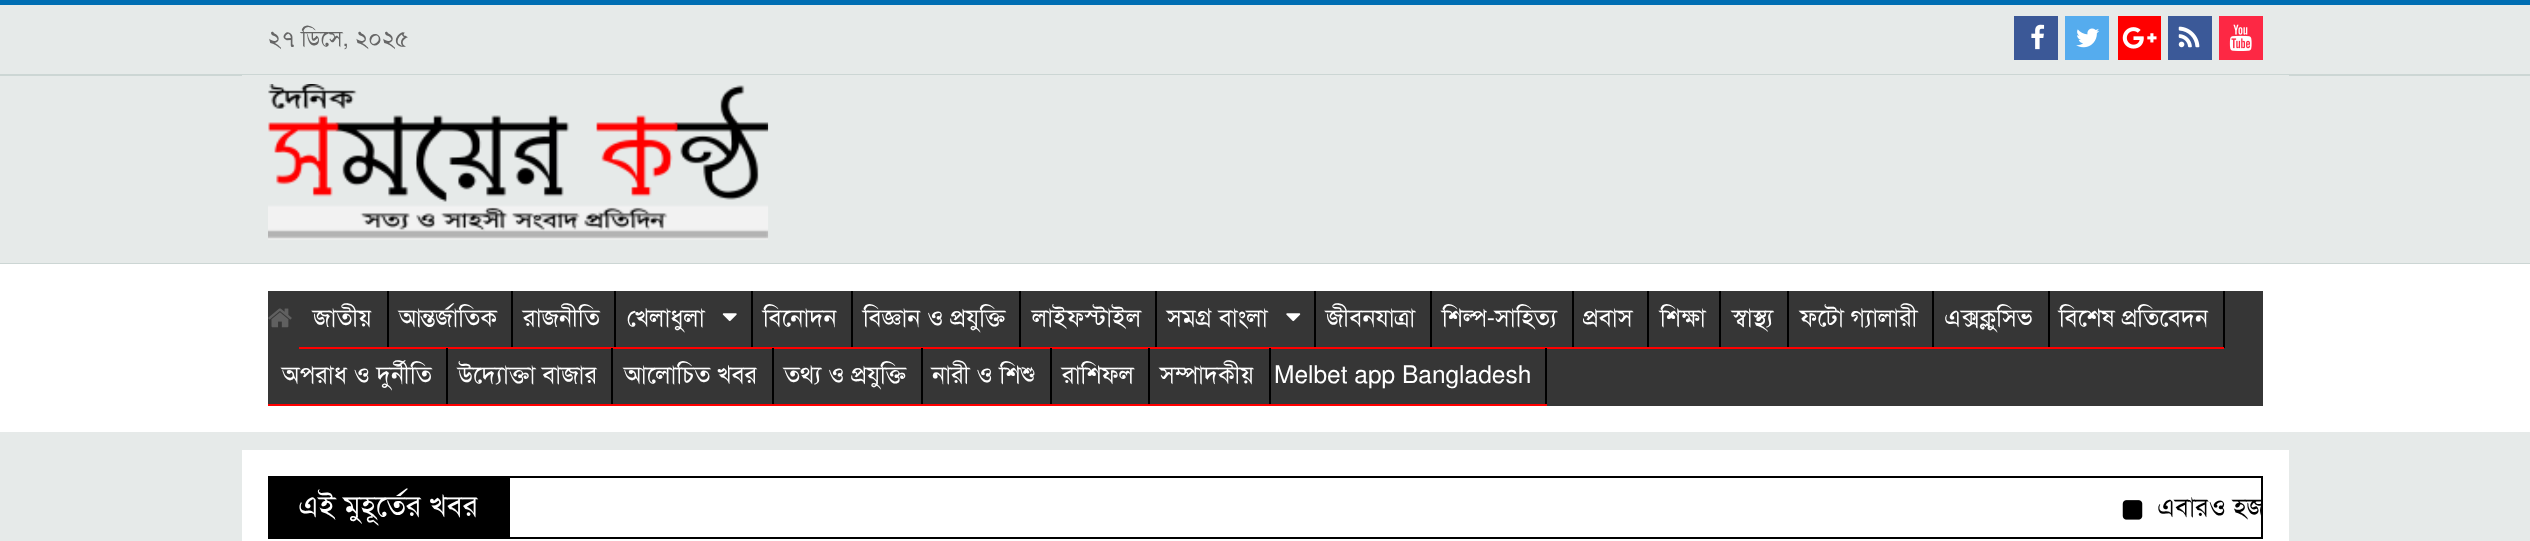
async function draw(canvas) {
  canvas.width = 2530;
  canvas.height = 541;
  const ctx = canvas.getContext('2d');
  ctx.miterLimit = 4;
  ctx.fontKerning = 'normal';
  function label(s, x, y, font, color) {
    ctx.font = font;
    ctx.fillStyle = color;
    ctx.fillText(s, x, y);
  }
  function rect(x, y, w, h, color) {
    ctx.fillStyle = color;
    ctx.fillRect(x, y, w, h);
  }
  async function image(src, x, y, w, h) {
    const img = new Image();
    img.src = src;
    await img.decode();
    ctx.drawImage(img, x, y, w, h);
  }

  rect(0, 0, 2530, 541, '#e6eae9');
  rect(0, 263, 2530, 1, '#ccd6d4');
  rect(0, 0, 2530, 5, '#006eb3');
  rect(0, 74, 2530, 2, '#ccd6d4');
  label('২৭ ডিসে, ২০২৫', 268, 46, '22.75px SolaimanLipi', '#666');
  rect(2014, 16, 44, 44, '#3b5897');
  await image('assets/img1.png', 2031, 24, 14, 26);
  rect(2065, 16, 44, 44, '#55acee');
  await image('assets/img2.png', 2076, 28, 23, 20);
  rect(2118, 16, 43, 44, '#f00');
  await image('assets/img3.png', 2122, 27, 35, 22);
  rect(2168, 16, 44, 44, '#3b5998');
  await image('assets/img4.png', 2178, 26, 22, 22);
  rect(2219, 16, 44, 44, '#fd2844');
  await image('assets/img5.png', 2229, 24, 23, 27);
  rect(242, 75, 2047, 1, '#e6eae9');
  await image('assets/img6.png', 268, 84, 501, 156);
  rect(0, 264, 2530, 168, '#fff');
  rect(268, 291, 1995, 115, '#363636');
  await image('assets/img7.png', 268, 308, 24, 20);
  rect(387, 291, 2, 57, '#000');
  rect(299, 347, 90, 2, '#f00');
  label('জাতীয়', 313, 326, '24.5px SolaimanLipi', '#fff');
  rect(511, 291, 2, 57, '#000');
  rect(385, 347, 128, 2, '#f00');
  label('আন্তর্জাতিক', 399, 326, '24.5px SolaimanLipi', '#fff');
  rect(614, 291, 2, 57, '#000');
  rect(509, 347, 107, 2, '#f00');
  label('রাজনীতি', 523, 326, '24.5px SolaimanLipi', '#fff');
  rect(751, 291, 2, 57, '#000');
  rect(613, 347, 140, 2, '#f00');
  label('খেলাধুলা', 627, 326, '24.5px SolaimanLipi', '#fff');
  await image('assets/img8.png', 722, 313, 15, 9);
  rect(851, 291, 2, 57, '#000');
  rect(749, 347, 103, 2, '#f00');
  label('বিনোদন', 763, 326, '24.5px SolaimanLipi', '#fff');
  rect(1019, 291, 2, 57, '#000');
  rect(849, 347, 171, 2, '#f00');
  label('বিজ্ঞান ও প্রযুক্তি', 863, 326, '24.5px SolaimanLipi', '#fff');
  rect(1155, 291, 2, 57, '#000');
  rect(1019, 347, 138, 2, '#f00');
  label('লাইফস্টাইল', 1032, 326, '24.5px SolaimanLipi', '#fff');
  rect(1314, 291, 2, 57, '#000');
  rect(1153, 347, 163, 2, '#f00');
  label('সমগ্র বাংলা', 1167, 326, '24.5px SolaimanLipi', '#fff');
  await image('assets/img9.png', 1286, 313, 15, 9);
  rect(1430, 291, 2, 57, '#000');
  rect(1313, 347, 119, 2, '#f00');
  label('জীবনযাত্রা', 1326, 326, '24.5px SolaimanLipi', '#fff');
  rect(1572, 291, 2, 57, '#000');
  rect(1428, 347, 145, 2, '#f00');
  label('শিল্প-সাহিত্য', 1442, 326, '24.5px SolaimanLipi', '#fff');
  rect(1647, 291, 2, 57, '#000');
  rect(1570, 347, 79, 2, '#f00');
  label('প্রবাস', 1583, 326, '24.5px SolaimanLipi', '#fff');
  rect(1719, 291, 2, 57, '#000');
  rect(1645, 347, 75, 2, '#f00');
  label('শিক্ষা', 1660, 326, '24.5px SolaimanLipi', '#fff');
  rect(1787, 291, 2, 57, '#000');
  rect(1719, 347, 70, 2, '#f00');
  label('স্বাস্থ্য', 1732, 326, '24.5px SolaimanLipi', '#fff');
  rect(1932, 291, 2, 57, '#000');
  rect(1785, 347, 149, 2, '#f00');
  label('ফটো গ্যালারী', 1800, 326, '24.5px SolaimanLipi', '#fff');
  rect(2048, 291, 2, 57, '#000');
  rect(1930, 347, 119, 2, '#f00');
  label('এক্সক্লুসিভ', 1944, 326, '24.5px SolaimanLipi', '#fff');
  rect(2223, 291, 2, 57, '#000');
  rect(2046, 347, 178, 2, '#f00');
  label('বিশেষ প্রতিবেদন', 2059, 326, '24.5px SolaimanLipi', '#fff');
  rect(446, 348, 2, 58, '#000');
  rect(268, 404, 180, 2, '#f00');
  label('অপরাধ ও দুর্নীতি', 282, 383, '24.5px SolaimanLipi', '#fff');
  rect(611, 348, 2, 58, '#000');
  rect(445, 404, 168, 2, '#f00');
  label('উদ্যোক্তা বাজার', 458, 383, '24.5px SolaimanLipi', '#fff');
  rect(772, 348, 2, 58, '#000');
  rect(611, 404, 163, 2, '#f00');
  label('আলোচিত খবর', 624, 383, '24.5px SolaimanLipi', '#fff');
  rect(921, 348, 2, 58, '#000');
  rect(770, 404, 152, 2, '#f00');
  label('তথ্য ও প্রযুক্তি', 784, 383, '24.5px SolaimanLipi', '#fff');
  rect(1050, 348, 2, 58, '#000');
  rect(919, 404, 133, 2, '#f00');
  label('নারী ও শিশু', 932, 383, '24.5px SolaimanLipi', '#fff');
  rect(1148, 348, 2, 58, '#000');
  rect(1048, 404, 212, 2, '#f00');
  label('রাশিফল', 1062, 383, '24.5px SolaimanLipi', '#fff');
  rect(1269, 348, 2, 58, '#000');
  label('সম্পাদকীয়', 1160, 383, '24.5px SolaimanLipi', '#fff');
  rect(1545, 348, 2, 58, '#000');
  rect(1260, 404, 287, 2, '#f00');
  label('Melbet app Bangladesh', 1274, 383, '24.5px SolaimanLipi', '#fff');
  rect(242, 450, 2047, 91, '#fff');
  rect(268, 476, 240, 63, '#000');
  label('এই মুহূর্তের খবর', 298, 516, '29.75px SolaimanLipi', '#fff');
  ctx.strokeStyle = '#000';
  ctx.lineWidth = 2;
  ctx.strokeRect(509, 477, 1753, 61);
  await image('assets/img10.png', 2122, 500, 21, 20);
  ctx.save();
  ctx.beginPath();
  ctx.rect(509, 478, 1752, 59);
  ctx.clip();
  label('এবারও হজ', 2157, 516, '26px SolaimanLipi', '#000');
  ctx.restore();
}

draw(document.querySelector('canvas'));
